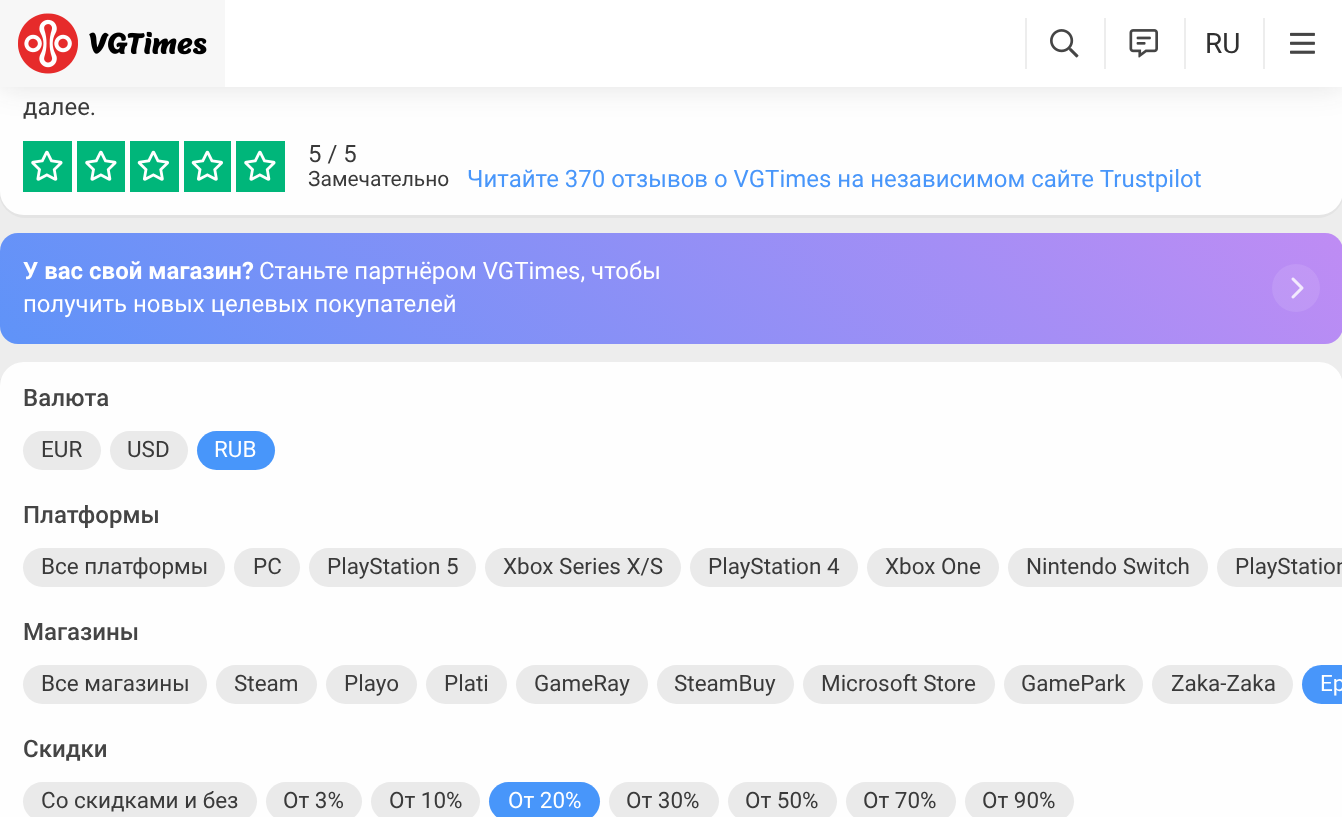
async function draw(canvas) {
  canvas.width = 1342;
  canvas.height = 817;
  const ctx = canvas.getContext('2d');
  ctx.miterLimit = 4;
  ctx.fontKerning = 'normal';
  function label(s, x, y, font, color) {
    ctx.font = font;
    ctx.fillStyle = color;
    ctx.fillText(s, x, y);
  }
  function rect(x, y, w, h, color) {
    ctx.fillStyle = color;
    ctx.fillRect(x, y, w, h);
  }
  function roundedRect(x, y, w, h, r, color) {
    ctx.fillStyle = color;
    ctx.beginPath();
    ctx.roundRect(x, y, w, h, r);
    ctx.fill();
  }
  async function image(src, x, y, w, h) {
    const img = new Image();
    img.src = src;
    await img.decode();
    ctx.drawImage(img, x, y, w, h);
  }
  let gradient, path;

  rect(0, 0, 1342, 817, '#ededed');
  ctx.fillStyle = '#e4e4e4';
  path = new Path2D('M1330-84C1337-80 1342-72 1342-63V190C1342 204 1332 214 1318 214H24C11 214 0 204 0 190V-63C0-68 2-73 4-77C1-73-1-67-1-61V192C-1 206 11 218 25 218H1318C1332 218 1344 206 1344 192V-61C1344-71 1338-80 1330-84Z');
  ctx.fill(path);
  roundedRect(0, -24, 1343, 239, 24, '#fefefe');
  ctx.fillStyle = '#29292921';
  ctx.filter = 'blur(15px)';
  ctx.beginPath();
  ctx.rect(0, 0, 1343, 87);
  ctx.fill();
  ctx.filter = 'none';
  rect(225, 0, 1117, 87, '#fff');
  rect(0, 0, 225, 87, '#f7f7f7');
  await image('assets/img2.png', 24, 20, 48, 47);
  await image('assets/img1.png', 18, 13, 60, 61);
  await image('assets/img3.png', 89, 31, 118, 24);
  rect(1025, 18, 2, 51, '#ededed');
  await image('assets/img4.png', 1050, 29, 29, 29);
  rect(1104, 18, 2, 51, '#ededed');
  await image('assets/img5.png', 1129, 29, 29, 29);
  rect(1184, 18, 2, 51, '#ededed');
  label('RU', 1205, 53, '28px Roboto', '#303030');
  rect(1263, 18, 2, 51, '#ededed');
  await image('assets/img6.png', 1290, 32, 25, 22);
  label('далее.', 23, 115, '24px Roboto', '#3a3a3a');
  rect(23, 141, 262, 51, '#00b67a');
  await image('assets/img7.png', 31, 150, 32, 31);
  rect(72, 141, 5, 51, '#fefefe');
  await image('assets/img7.png', 85, 150, 32, 31);
  rect(125, 141, 5, 51, '#fefefe');
  await image('assets/img8.png', 137, 150, 32, 31);
  rect(179, 141, 5, 51, '#fefefe');
  await image('assets/img8.png', 191, 150, 32, 31);
  rect(231, 141, 5, 51, '#fefefe');
  await image('assets/img7.png', 244, 150, 32, 31);
  label('5 / 5', 308, 162, '24px Roboto', '#3a3a3a');
  label('Замечательно', 308, 186, '21px Roboto', '#3a3a3a');
  label('Читайте 370 отзывов о VGTimes на независимом сайте Trustpilot', 467, 187, '24px Roboto', '#4896fa');
  gradient = ctx.createLinearGradient(1035, -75, 308, 651);
  gradient.addColorStop(0, '#bf8cf4');
  gradient.addColorStop(1, '#5f93f8');
  ctx.fillStyle = gradient;
  ctx.beginPath();
  ctx.roundRect(0, 233, 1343, 111, 18);
  ctx.fill();
  label('У вас свой магазин?', 23, 279, 'bold 24px Roboto', '#fff');
  label('Станьте партнёром VGTimes, чтобы', 259, 279, '24px Roboto', '#fff');
  label('получить новых целевых покупателей', 23, 312, '24px Roboto', '#fff');
  ctx.fillStyle = '#ffffff1a';
  ctx.beginPath();
  ctx.arc(1296, 288, 24, 0, 2 * Math.PI);
  ctx.fill();
  await image('assets/img9.png', 1291, 277, 13, 22);
  ctx.fillStyle = '#e4e4e4';
  path = new Path2D('M2 376C0 379-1 384-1 388V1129C-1 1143 11 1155 25 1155H1318C1332 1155 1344 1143 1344 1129V388C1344 381 1341 375 1337 371C1341 375 1342 380 1342 386V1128C1342 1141 1332 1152 1318 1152H24C11 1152 0 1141 0 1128V386C0 382 1 379 2 376Z');
  ctx.fill(path);
  roundedRect(0, 362, 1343, 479, 24, '#fefefe');
  label('Валюта', 23, 406, '500 24px Roboto', '#454545');
  roundedRect(23, 431, 78, 39, 19.5, '#eaeaea');
  label('EUR', 41, 457, '22.5px Roboto', '#3a3a3a');
  roundedRect(110, 431, 78, 39, 19.5, '#eaeaea');
  label('USD', 127, 457, '22.5px Roboto', '#3a3a3a');
  roundedRect(197, 431, 78, 39, 19.5, '#4896fa');
  label('RUB', 214, 457, '22.5px Roboto', '#fff');
  label('Платформы', 23, 523, '500 24px Roboto', '#454545');
  roundedRect(23, 548, 202, 39, 19.5, '#eaeaea');
  label('Все платформы', 41, 574, '22.5px Roboto', '#3a3a3a');
  roundedRect(234, 548, 66, 39, 19.5, '#eaeaea');
  label('PC', 253, 574, '22.5px Roboto', '#3a3a3a');
  roundedRect(309, 548, 167, 39, 19.5, '#eaeaea');
  label('PlayStation 5', 327, 574, '22.5px Roboto', '#3a3a3a');
  roundedRect(485, 548, 196, 39, 19.5, '#eaeaea');
  label('Xbox Series X/S', 503, 574, '22.5px Roboto', '#3a3a3a');
  roundedRect(690, 548, 168, 39, 19.5, '#eaeaea');
  label('PlayStation 4', 708, 574, '22.5px Roboto', '#3a3a3a');
  roundedRect(867, 548, 132, 39, 19.5, '#eaeaea');
  label('Xbox One', 885, 574, '22.5px Roboto', '#3a3a3a');
  roundedRect(1008, 548, 200, 39, 19.5, '#eaeaea');
  label('Nintendo Switch', 1026, 574, '22.5px Roboto', '#3a3a3a');
  ctx.fillStyle = '#eaeaea';
  path = new Path2D('M1236.5 548H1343V587H1236.5C1225.5 587 1217 578.5 1217 567.5C1217 556.5 1225.5 548 1236.5 548Z');
  ctx.fill(path);
  label('PlayStation', 1235, 574, '22.5px Roboto', '#3a3a3a');
  label('Магазины', 23, 640, '500 24px Roboto', '#454545');
  roundedRect(23, 665, 184, 39, 19.5, '#eaeaea');
  label('Все магазины', 41, 691, '22.5px Roboto', '#3a3a3a');
  roundedRect(216, 665, 101, 39, 19.5, '#eaeaea');
  label('Steam', 234, 691, '22.5px Roboto', '#3a3a3a');
  roundedRect(326, 665, 91, 39, 19.5, '#eaeaea');
  label('Playo', 344, 691, '22.5px Roboto', '#3a3a3a');
  roundedRect(426, 665, 81, 39, 19.5, '#eaeaea');
  label('Plati', 444, 691, '22.5px Roboto', '#3a3a3a');
  roundedRect(516, 665, 132, 39, 19.5, '#eaeaea');
  label('GameRay', 534, 691, '22.5px Roboto', '#3a3a3a');
  roundedRect(657, 665, 137, 39, 19.5, '#eaeaea');
  label('SteamBuy', 674, 691, '22.5px Roboto', '#3a3a3a');
  roundedRect(803, 665, 192, 39, 19.5, '#eaeaea');
  label('Microsoft Store', 821, 691, '22.5px Roboto', '#3a3a3a');
  roundedRect(1004, 665, 139, 39, 19.5, '#eaeaea');
  label('GamePark', 1021, 691, '22.5px Roboto', '#3a3a3a');
  roundedRect(1152, 665, 141, 39, 19.5, '#eaeaea');
  label('Zaka-Zaka', 1171, 691, '22.5px Roboto', '#3a3a3a');
  ctx.fillStyle = '#4896fa';
  path = new Path2D('M1321.5 665H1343V704H1321.5C1310.5 704 1302 695.5 1302 684.5C1302 673.5 1310.5 665 1321.5 665Z');
  ctx.fill(path);
  label('Ep', 1320, 691, '22.5px Roboto', '#fff');
  label('Скидки', 23, 757, '500 24px Roboto', '#454545');
  roundedRect(23, 782, 234, 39, 19.5, '#eaeaea');
  label('Со скидками и без', 41, 808, '22.5px Roboto', '#3a3a3a');
  roundedRect(266, 782, 96, 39, 19.5, '#eaeaea');
  label('От 3%', 283, 808, '22.5px Roboto', '#3a3a3a');
  roundedRect(371, 782, 109, 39, 19.5, '#eaeaea');
  label('От 10%', 389, 808, '22.5px Roboto', '#3a3a3a');
  roundedRect(489, 782, 111, 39, 19.5, '#4896fa');
  label('От 20%', 508, 808, '22.5px Roboto', '#fff');
  roundedRect(609, 782, 110, 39, 19.5, '#eaeaea');
  label('От 30%', 626, 808, '22.5px Roboto', '#3a3a3a');
  roundedRect(728, 782, 109, 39, 19.5, '#eaeaea');
  label('От 50%', 745, 808, '22.5px Roboto', '#3a3a3a');
  roundedRect(846, 782, 110, 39, 19.5, '#eaeaea');
  label('От 70%', 863, 808, '22.5px Roboto', '#3a3a3a');
  roundedRect(965, 782, 109, 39, 19.5, '#eaeaea');
  label('От 90%', 982, 808, '22.5px Roboto', '#3a3a3a');
}

draw(document.querySelector('canvas'));
